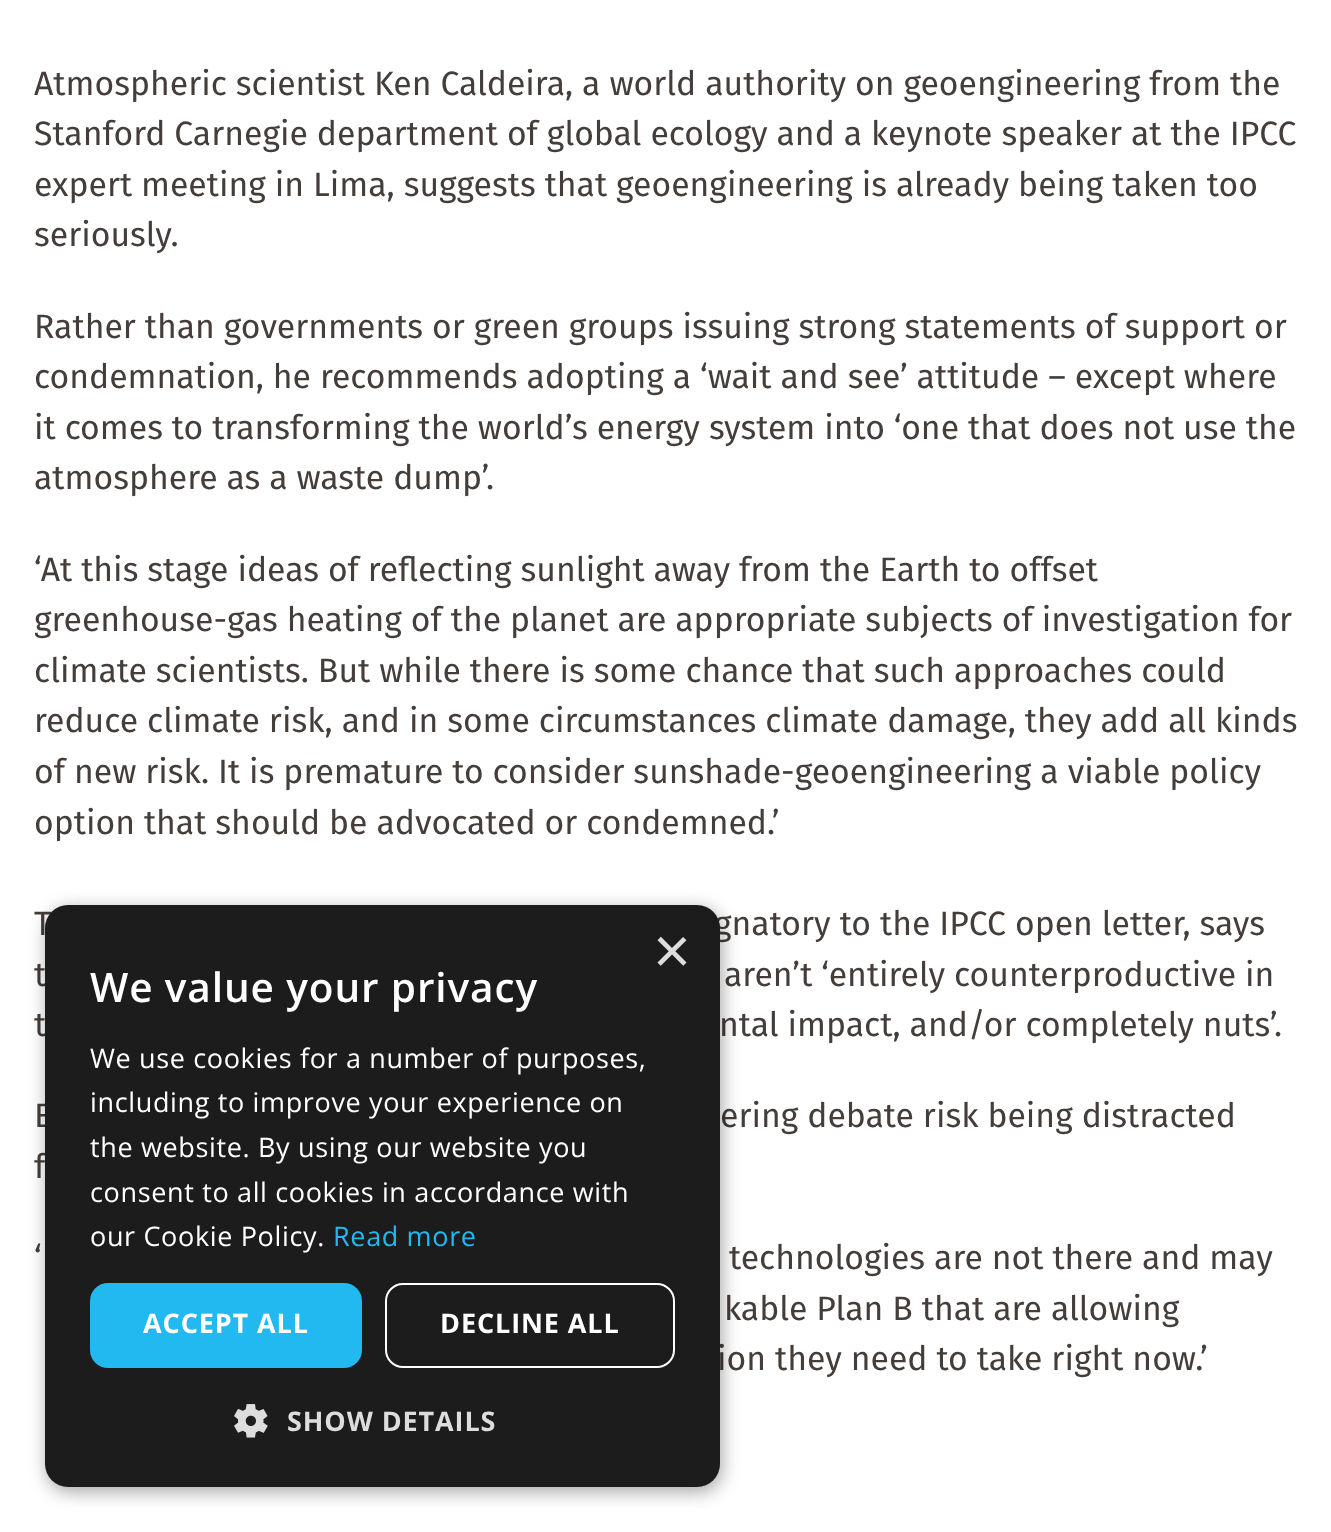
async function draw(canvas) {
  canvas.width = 1331;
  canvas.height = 1532;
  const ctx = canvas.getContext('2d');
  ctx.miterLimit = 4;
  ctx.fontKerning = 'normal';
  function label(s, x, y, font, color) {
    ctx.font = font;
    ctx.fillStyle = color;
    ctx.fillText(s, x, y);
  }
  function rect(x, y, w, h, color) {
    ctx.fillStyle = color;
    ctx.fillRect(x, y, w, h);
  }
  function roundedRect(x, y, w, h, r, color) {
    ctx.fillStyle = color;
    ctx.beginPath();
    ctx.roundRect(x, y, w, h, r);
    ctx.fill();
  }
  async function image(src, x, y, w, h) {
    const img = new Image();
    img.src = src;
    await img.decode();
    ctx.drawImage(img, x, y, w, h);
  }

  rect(0, 0, 1331, 1532, '#fff');
  label('Atmospheric scientist Ken Caldeira, a world authority on geoengineering from the', 34, 95, '33.75px Fira Sans', '#443d39');
  label('Stanford Carnegie department of global ecology and a keynote speaker at the IPCC', 34, 145, '33.75px Fira Sans', '#443d39');
  label('expert meeting in Lima, suggests that geoengineering is already being taken too', 34, 196, '33.75px Fira Sans', '#443d39');
  label('seriously.', 34, 246, '33.75px Fira Sans', '#443d39');
  label('Rather than governments or green groups issuing strong statements of support or', 34, 338, '33.75px Fira Sans', '#443d39');
  label('condemnation, he recommends adopting a ‘wait and see’ attitude – except where', 34, 388, '33.75px Fira Sans', '#443d39');
  label('it comes to transforming the world’s energy system into ‘one that does not use the', 34, 439, '33.75px Fira Sans', '#443d39');
  label('atmosphere as a waste dump’.', 34, 489, '33.75px Fira Sans', '#443d39');
  label('‘At this stage ideas of reflecting sunlight away from the Earth to offset', 34, 581, '33.75px Fira Sans', '#443d39');
  label('greenhouse-gas heating of the planet are appropriate subjects of investigation for', 34, 631, '33.75px Fira Sans', '#443d39');
  label('climate scientists. But while there is some chance that such approaches could', 34, 682, '33.75px Fira Sans', '#443d39');
  label('reduce climate risk, and in some circumstances climate damage, they add all kinds', 34, 732, '33.75px Fira Sans', '#443d39');
  label('of new risk. It is premature to consider sunshade-geoengineering a viable policy', 34, 783, '33.75px Fira Sans', '#443d39');
  label('option that should be advocated or condemned.’', 34, 834, '33.75px Fira Sans', '#443d39');
  label('T', 34, 935, '33.75px Fira Sans', '#443d39');
  label('gnatory to the IPCC open letter, says', 714, 935, '33.75px Fira Sans', '#443d39');
  label('t', 34, 986, '33.75px Fira Sans', '#443d39');
  label('aren’t ‘entirely counterproductive in', 724, 986, '33.75px Fira Sans', '#443d39');
  label('t', 34, 1036, '33.75px Fira Sans', '#443d39');
  label('ntal impact, and/or completely nuts’.', 719, 1036, '33.75px Fira Sans', '#443d39');
  label('E', 34, 1127, '33.75px Fira Sans', '#443d39');
  label('ering debate risk being distracted', 720, 1127, '33.75px Fira Sans', '#443d39');
  label('f', 34, 1178, '33.75px Fira Sans', '#443d39');
  label('‘', 34, 1269, '33.75px Fira Sans', '#443d39');
  label('technologies are not there and may', 729, 1269, '33.75px Fira Sans', '#443d39');
  label('kable Plan B that are allowing', 724, 1320, '33.75px Fira Sans', '#443d39');
  label('ion they need to take right now.’', 717, 1370, '33.75px Fira Sans', '#443d39');
  ctx.fillStyle = '#00000059';
  ctx.filter = 'blur(9px)';
  ctx.beginPath();
  ctx.roundRect(47, 909, 675, 583, 23);
  ctx.fill();
  ctx.filter = 'none';
  roundedRect(45, 905, 675, 582, 23, '#1c1c1c');
  label('×', 653, 973, '65px Liberation Sans', '#ddd');
  ctx.letterSpacing = '0.9px';
  label('We value your privacy', 90, 1002, '600 40.5px Open Sans', '#fff');
  ctx.letterSpacing = '0.65px';
  label('We use cookies for a number of purposes,', 90, 1068, '27px Open Sans', '#fff');
  label('including to improve your experience on', 90, 1112, '27px Open Sans', '#fff');
  label('the website. By using our website you', 90, 1157, '27px Open Sans', '#fff');
  label('consent to all cookies in accordance with', 90, 1202, '27px Open Sans', '#fff');
  label('our Cookie Policy.', 90, 1246, '27px Open Sans', '#fff');
  label('Read more', 333, 1246, '27px Open Sans', '#22b8f0');
  roundedRect(90, 1283, 272, 85, 18, '#22b8f0');
  ctx.letterSpacing = '0.9px';
  label('ACCEPT ALL', 143, 1333, 'bold 27px Open Sans', '#fff');
  ctx.beginPath();
  ctx.roundRect(386, 1284, 288, 83, 17);
  ctx.strokeStyle = '#fff';
  ctx.lineWidth = 2;
  ctx.stroke();
  label('DECLINE ALL', 440, 1333, 'bold 27px Open Sans', '#fff');
  await image('assets/img1.png', 234, 1404, 34, 34);
  label('SHOW DETAILS', 287, 1431, 'bold 27px Open Sans', '#ddd');
}

draw(document.querySelector('canvas'));
